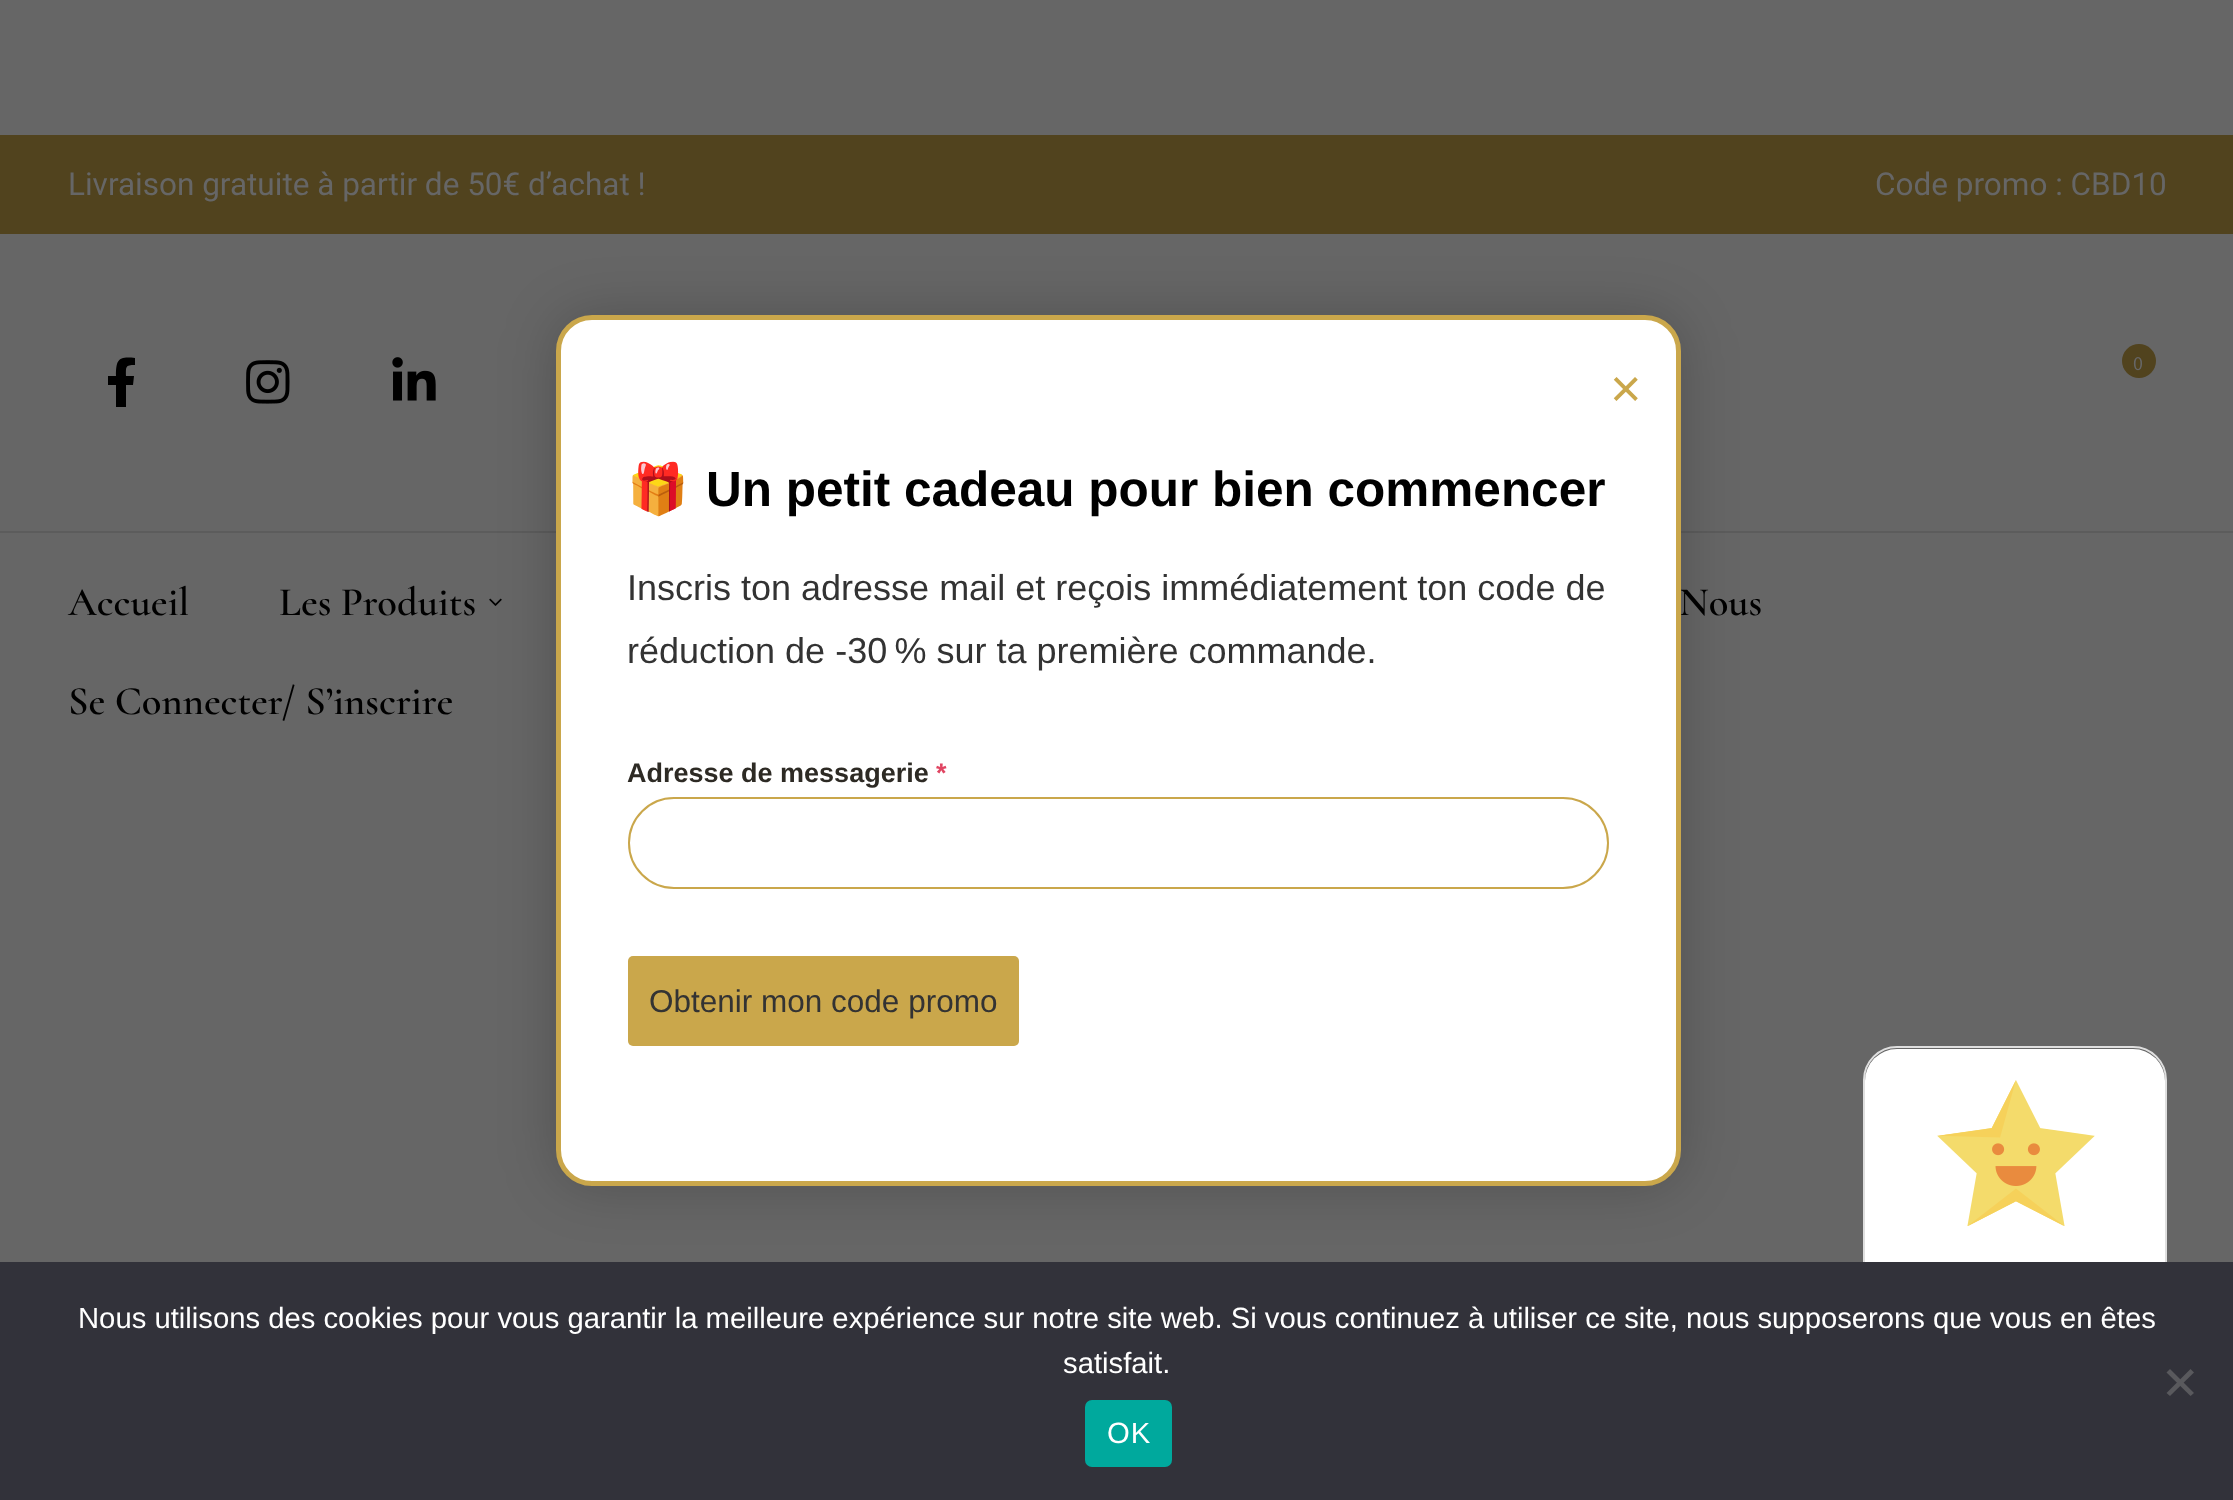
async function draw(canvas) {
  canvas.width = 2233;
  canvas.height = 1500;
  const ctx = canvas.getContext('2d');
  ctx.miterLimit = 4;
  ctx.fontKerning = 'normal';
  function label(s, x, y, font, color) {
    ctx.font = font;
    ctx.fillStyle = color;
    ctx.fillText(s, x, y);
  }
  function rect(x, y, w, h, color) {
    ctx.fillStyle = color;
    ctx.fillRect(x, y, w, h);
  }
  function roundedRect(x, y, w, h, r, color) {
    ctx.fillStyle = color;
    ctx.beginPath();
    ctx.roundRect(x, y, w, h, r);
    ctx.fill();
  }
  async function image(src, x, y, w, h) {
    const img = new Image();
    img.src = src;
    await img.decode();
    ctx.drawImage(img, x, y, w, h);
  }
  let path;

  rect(0, 0, 2233, 1500, '#666');
  rect(0, 135, 2233, 99, '#51431e');
  label('Livraison gratuite à partir de 50€ d’achat !', 68, 195, '31.5px Roboto', '#666');
  label('Code promo : CBD10', 1875, 195, '31.5px Roboto', '#666');
  rect(0, 531, 2233, 2, '#5c5c5c');
  ctx.fillStyle = '#000';
  path = new Path2D('M133 385H126V407H116V385H108V376H116C116 360 118 356 135 358V365C125 365 126 367 126 376H134Z');
  ctx.fill(path);
  await image('assets/img1.png', 246, 360, 44, 44);
  await image('assets/img2.png', 392, 357, 44, 44);
  ctx.fillStyle = '#51431e';
  ctx.beginPath();
  ctx.arc(2139, 361, 17, 0, 2 * Math.PI);
  ctx.fill();
  label('0', 2133, 370, '20px Source Sans Pro', '#666');
  label('Accueil', 68, 615, '600 40.5px Cormorant', '#000');
  label('Les Produits', 279, 615, '600 40.5px Cormorant', '#000');
  await image('assets/img3.png', 489, 598, 13, 8);
  label('Nous', 1679, 615, '600 40.5px Cormorant', '#000');
  label('Se Connecter/ S’inscrire', 68, 714, '600 40.5px Cormorant', '#000');
  ctx.fillStyle = '#00000033';
  ctx.filter = 'blur(28px)';
  ctx.beginPath();
  ctx.roundRect(556, 315, 1125, 871, 36);
  ctx.fill();
  ctx.filter = 'none';
  ctx.fillStyle = '#fff';
  ctx.beginPath();
  ctx.roundRect(558.5, 317.5, 1120, 866, 33.5);
  ctx.fill();
  ctx.strokeStyle = '#caa74b';
  ctx.lineWidth = 5;
  ctx.stroke();
  label('×', 1610, 407, '54px Liberation Sans', '#caa74b');
  label('🎁', 627, 506, 'bold 49.5px Noto Color Emoji', '#000');
  label('Un petit cadeau pour bien commencer', 706, 506, 'bold 49.5px Liberation Sans', '#000');
  label('Inscris ton adresse mail et reçois immédiatement ton code de', 627, 600, '36px Liberation Sans', '#333');
  label('réduction de -30 % sur ta première commande.', 627, 663, '36px Liberation Sans', '#333');
  label('Adresse de messagerie', 627, 782, 'bold 27px Liberation Sans', '#2d2a24');
  label('*', 936, 782, 'bold 27px Liberation Sans', '#e04562');
  ctx.beginPath();
  ctx.roundRect(629, 798, 979, 90, 45);
  ctx.lineWidth = 2;
  ctx.stroke();
  roundedRect(628, 956, 391, 90, 5, '#caa74b');
  label('Obtenir mon code promo', 649, 1012, '31.5px Liberation Sans', '#333');
  ctx.beginPath();
  ctx.roundRect(1864, 1047, 302, 385, 33);
  ctx.strokeStyle = '#dfdfdf';
  ctx.stroke();
  ctx.fillStyle = '#fff';
  ctx.beginPath();
  ctx.roundRect(1865, 1049, 300, 258, [32, 32, 0, 0]);
  ctx.fill();
  await image('assets/img4.png', 1937, 1080, 158, 146);
  rect(0, 1262, 2233, 238, '#32323a');
  label('Nous utilisons des cookies pour vous garantir la meilleure expérience sur notre site web. Si vous continuez à utiliser ce site, nous supposerons que vous en êtes', 78, 1328, '29.25px Liberation Sans', '#fff');
  label('satisfait.', 1063, 1373, '29.25px Liberation Sans', '#fff');
  ctx.fillStyle = '#59595d';
  path = new Path2D('M2190.5 1369L2194 1372.5L2170 1396L2166.5 1393Z');
  ctx.fill(path);
  path = new Path2D('M2166.5 1372.5L2170 1369L2194 1393L2190.5 1396Z');
  ctx.fill(path);
  roundedRect(1085, 1400, 87, 67, 7, '#00a99d');
  ctx.letterSpacing = '1px';
  label('OK', 1107, 1443, '29.25px Liberation Sans', '#fff');
}

draw(document.querySelector('canvas'));
